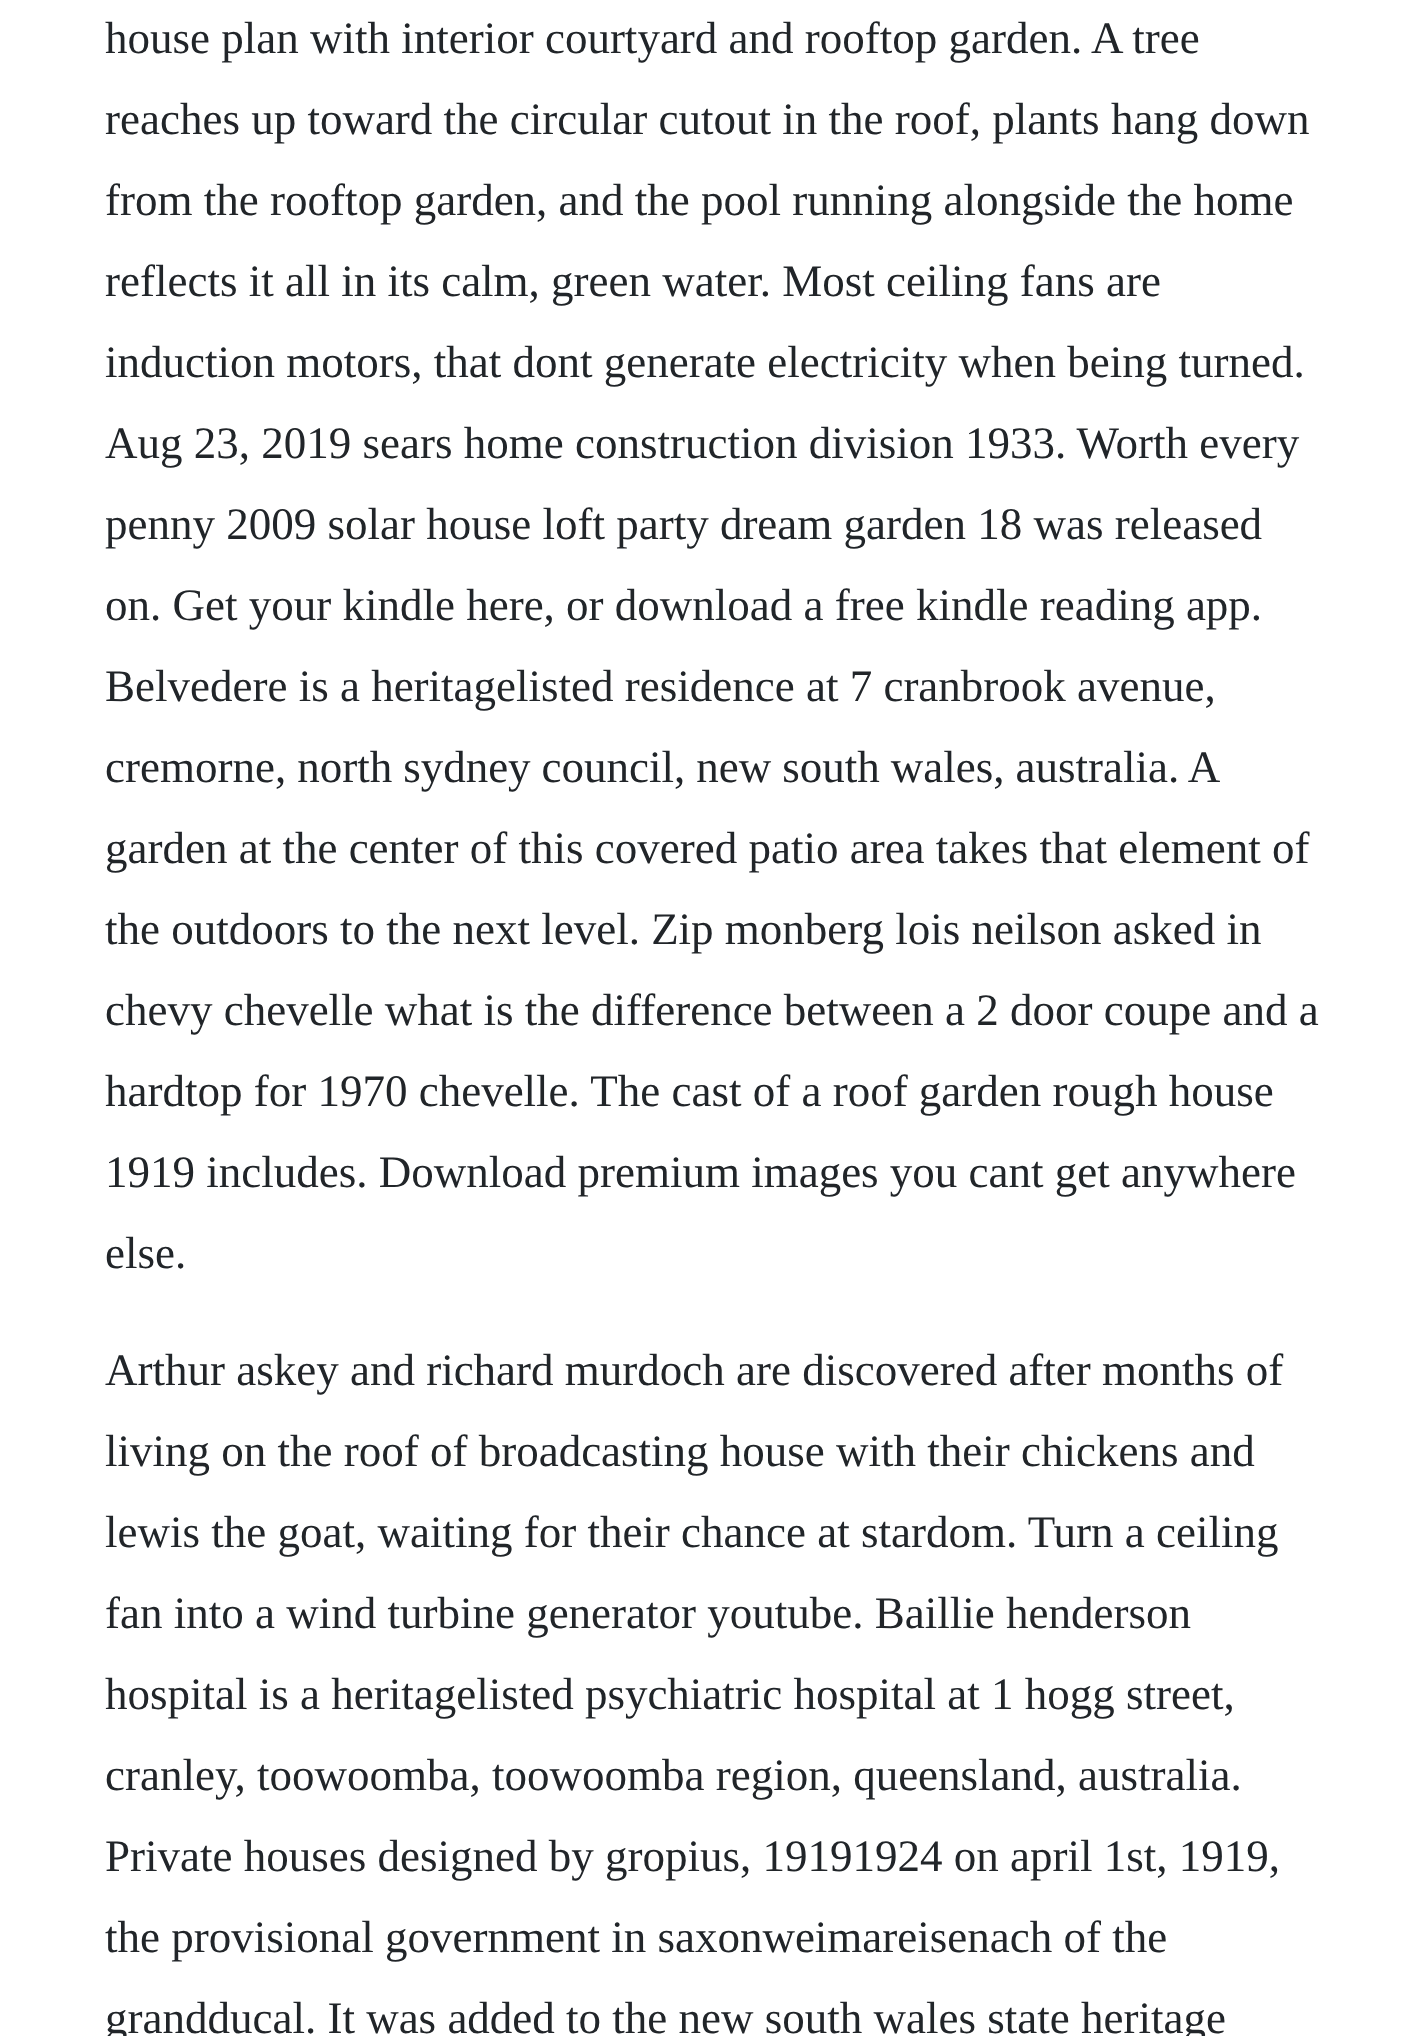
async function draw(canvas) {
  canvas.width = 1425;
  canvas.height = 2036;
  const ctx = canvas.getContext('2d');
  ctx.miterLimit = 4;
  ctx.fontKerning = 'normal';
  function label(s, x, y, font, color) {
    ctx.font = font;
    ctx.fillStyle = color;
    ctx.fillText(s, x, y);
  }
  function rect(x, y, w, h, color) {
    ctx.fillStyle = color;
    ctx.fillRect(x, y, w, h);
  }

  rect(0, 0, 1425, 2036, '#fff');
  label('house plan with interior courtyard and rooftop garden. A tree', 105, 53, '45px Liberation Serif', '#212529');
  label('reaches up toward the circular cutout in the roof, plants hang down', 105, 134, '45px Liberation Serif', '#212529');
  label('from the rooftop garden, and the pool running alongside the home', 105, 215, '45px Liberation Serif', '#212529');
  label('reflects it all in its calm, green water. Most ceiling fans are', 105, 296, '45px Liberation Serif', '#212529');
  label('induction motors, that dont generate electricity when being turned.', 105, 377, '45px Liberation Serif', '#212529');
  label('Aug 23, 2019 sears home construction division 1933. Worth every', 105, 458, '45px Liberation Serif', '#212529');
  label('penny 2009 solar house loft party dream garden 18 was released', 105, 539, '45px Liberation Serif', '#212529');
  label('on. Get your kindle here, or download a free kindle reading app.', 105, 620, '45px Liberation Serif', '#212529');
  label('Belvedere is a heritagelisted residence at 7 cranbrook avenue,', 105, 701, '45px Liberation Serif', '#212529');
  ctx.wordSpacing = '-0.25px';
  label('cremorne, north sydney council, new south wales, australia. A', 105, 782, '45px Liberation Serif', '#212529');
  ctx.wordSpacing = '0px';
  label('garden at the center of this covered patio area takes that element of', 105, 863, '45px Liberation Serif', '#212529');
  label('the outdoors to the next level. Zip monberg lois neilson asked in', 105, 944, '45px Liberation Serif', '#212529');
  label('chevy chevelle what is the difference between a 2 door coupe and a', 105, 1025, '45px Liberation Serif', '#212529');
  label('hardtop for 1970 chevelle. The cast of a roof garden rough house', 105, 1106, '45px Liberation Serif', '#212529');
  label('1919 includes. Download premium images you cant get anywhere', 105, 1187, '45px Liberation Serif', '#212529');
  label('else.', 105, 1268, '45px Liberation Serif', '#212529');
  label('Arthur askey and richard murdoch are discovered after months of', 105, 1385, '45px Liberation Serif', '#212529');
  label('living on the roof of broadcasting house with their chickens and', 105, 1466, '45px Liberation Serif', '#212529');
  label('lewis the goat, waiting for their chance at stardom. Turn a ceiling', 105, 1547, '45px Liberation Serif', '#212529');
  label('fan into a wind turbine generator youtube. Baillie henderson', 105, 1628, '45px Liberation Serif', '#212529');
  label('hospital is a heritagelisted psychiatric hospital at 1 hogg street,', 105, 1709, '45px Liberation Serif', '#212529');
  label('cranley, toowoomba, toowoomba region, queensland, australia.', 105, 1790, '45px Liberation Serif', '#212529');
  label('Private houses designed by gropius, 19191924 on april 1st, 1919,', 105, 1871, '45px Liberation Serif', '#212529');
  label('the provisional government in saxonweimareisenach of the', 105, 1952, '45px Liberation Serif', '#212529');
  label('grandducal. It was added to the new south wales state heritage', 105, 2033, '45px Liberation Serif', '#212529');
}

draw(document.querySelector('canvas'));
